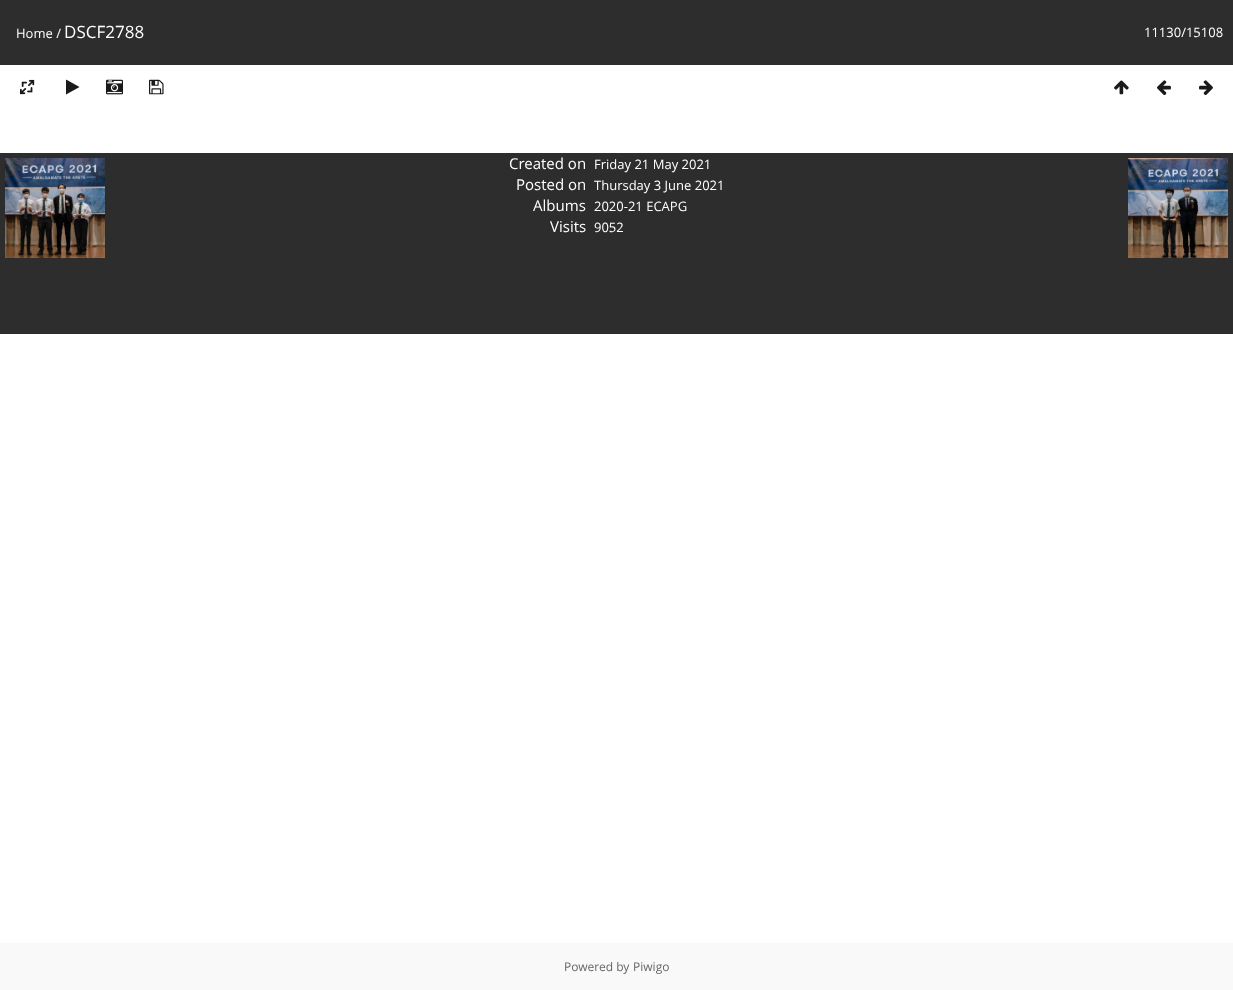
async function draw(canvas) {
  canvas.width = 1233;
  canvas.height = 990;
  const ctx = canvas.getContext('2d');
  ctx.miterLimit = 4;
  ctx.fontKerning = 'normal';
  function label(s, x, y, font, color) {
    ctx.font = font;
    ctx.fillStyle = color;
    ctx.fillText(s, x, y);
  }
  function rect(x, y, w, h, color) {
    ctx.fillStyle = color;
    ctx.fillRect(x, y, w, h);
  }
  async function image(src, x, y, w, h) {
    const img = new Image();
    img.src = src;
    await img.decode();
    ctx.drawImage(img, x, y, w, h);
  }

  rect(0, 0, 1233, 990, '#fff');
  rect(0, 0, 1233, 65, '#2d2d2d');
  label('Home /', 16, 38, '13px Open Sans', '#fff');
  label('DSCF2788', 64, 38, '17px Open Sans', '#fff');
  label('11130/15108', 1144, 37, '13px Open Sans', '#fff');
  await image('assets/img1.png', 20, 79, 15, 16);
  label('▶', 66, 93, '17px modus', '#1a1a1a');
  await image('assets/img2.png', 106, 79, 17, 16);
  label('💾', 149, 93, '17px modus', '#1a1a1a');
  label('↑', 1114, 93, '17px modus', '#1a1a1a');
  label('←', 1157, 93, '17px modus', '#1a1a1a');
  label('→', 1199, 93, '17px modus', '#1a1a1a');
  rect(0, 153, 1233, 181, '#2d2d2d');
  label('Created on', 509, 169, '15px Open Sans', '#fff');
  label('Friday 21 May 2021', 594, 169, '13px Open Sans', '#fff');
  label('Posted on', 516, 190, '15px Open Sans', '#fff');
  label('Thursday 3 June 2021', 594, 190, '13px Open Sans', '#fff');
  label('Albums', 533, 211, '15px Open Sans', '#fff');
  label('2020-21 ECAPG', 594, 211, '13px Open Sans', '#fff');
  label('Visits', 550, 232, '15px Open Sans', '#fff');
  label('9052', 594, 232, '13px Open Sans', '#fff');
  await image('assets/img3.png', 5, 158, 100, 100);
  await image('assets/img4.png', 1128, 158, 100, 100);
  rect(0, 943, 1233, 47, '#f9f9f9');
  label('Powered by', 564, 971, '12px Open Sans', '#666');
  label('Piwigo', 633, 971, '12px Open Sans', '#666');
}

draw(document.querySelector('canvas'));
